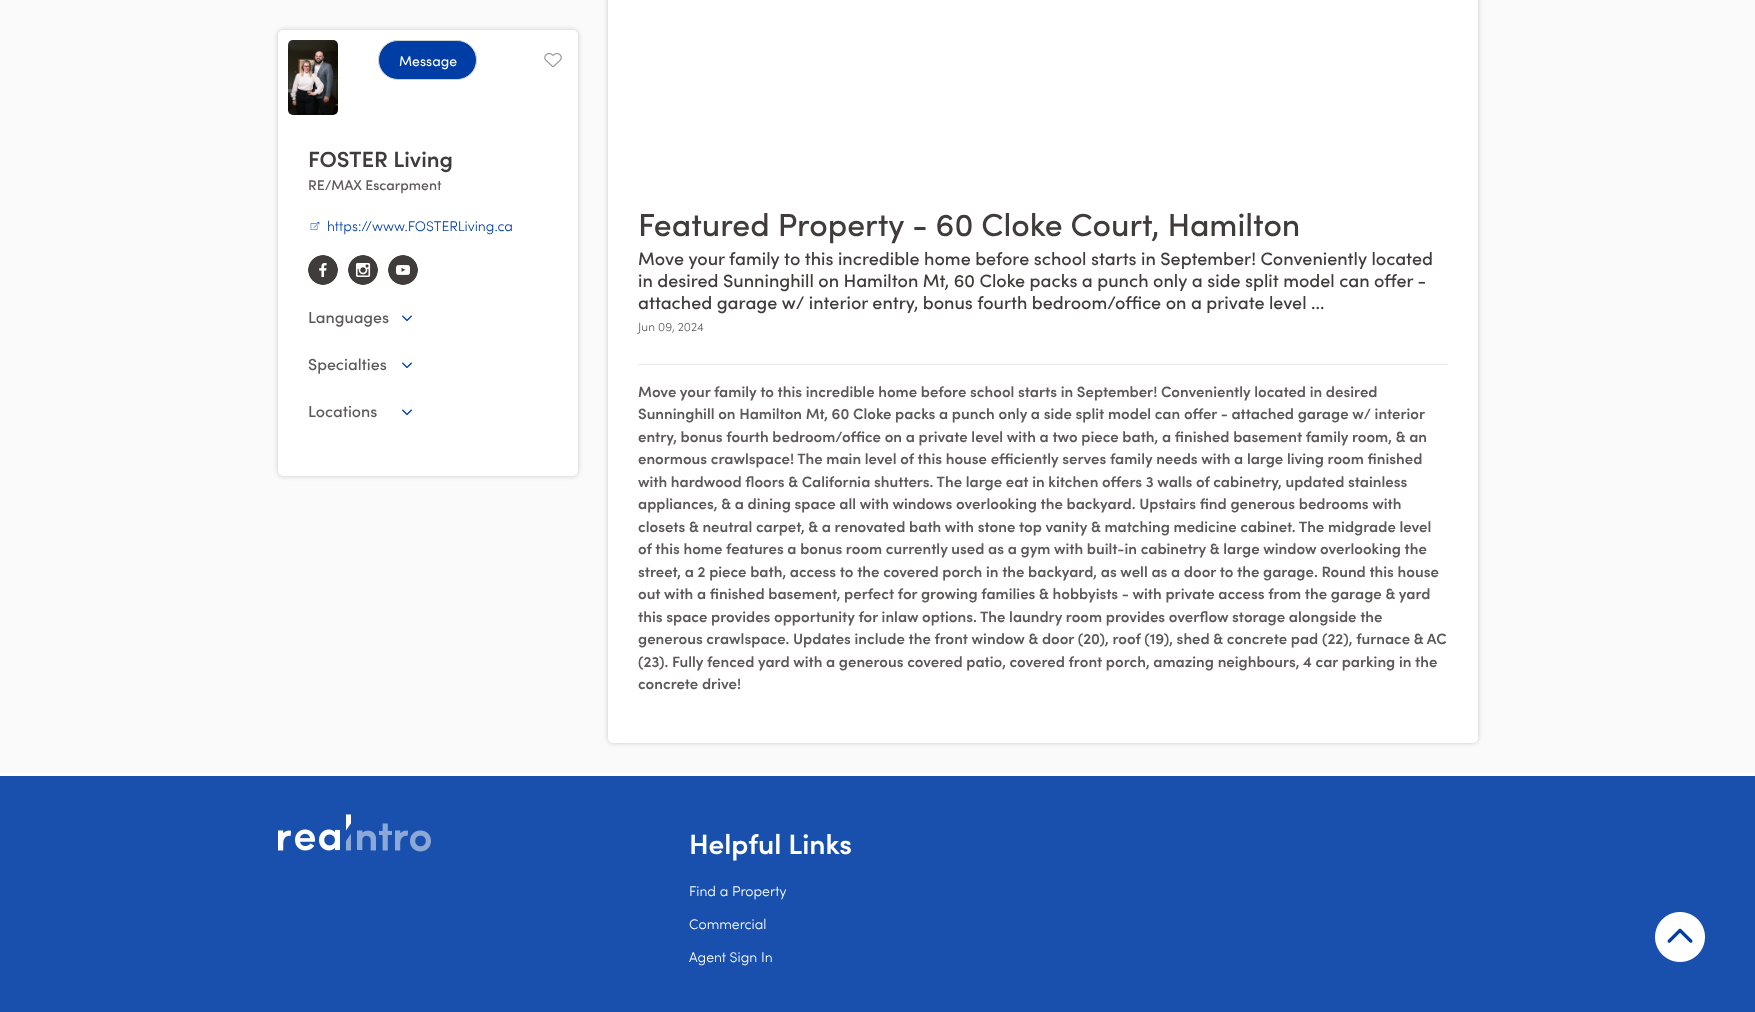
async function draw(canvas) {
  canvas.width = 1755;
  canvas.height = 1012;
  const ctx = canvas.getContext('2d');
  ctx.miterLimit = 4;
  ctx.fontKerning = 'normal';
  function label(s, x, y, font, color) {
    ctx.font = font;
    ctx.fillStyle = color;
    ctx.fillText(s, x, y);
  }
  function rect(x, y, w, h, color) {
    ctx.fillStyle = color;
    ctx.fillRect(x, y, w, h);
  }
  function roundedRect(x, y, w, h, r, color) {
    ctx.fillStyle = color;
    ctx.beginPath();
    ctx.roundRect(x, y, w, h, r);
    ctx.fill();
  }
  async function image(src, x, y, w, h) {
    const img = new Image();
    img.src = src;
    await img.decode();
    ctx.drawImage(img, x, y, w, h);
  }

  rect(0, 0, 1755, 1012, '#fafafa');
  ctx.fillStyle = '#00000033';
  ctx.filter = 'blur(2.5px)';
  ctx.beginPath();
  ctx.roundRect(278, 30, 300, 446, 5);
  ctx.fill();
  ctx.filter = 'none';
  roundedRect(278, 30, 300, 446, 5, '#fff');
  await image('assets/img1.png', 288, 40, 50, 75);
  ctx.fillStyle = '#003da5';
  ctx.beginPath();
  ctx.roundRect(378.5, 40.5, 98, 39, 19.5);
  ctx.fill();
  ctx.strokeStyle = '#d3d3d3';
  ctx.stroke();
  label('Message', 399, 66, '14px Sofia', '#fff');
  await image('assets/img2.png', 544, 53, 18, 14);
  label('FOSTER Living', 308, 167, '600 22px Sofia', '#413c3c');
  label('RE/MAX Escarpment', 308, 190, '500 14px Sofia', '#5d5959');
  await image('assets/img3.png', 310, 222, 10, 8);
  label('https://www.FOSTERLiving.ca', 327, 231, '300 14px Sofia', '#003da5');
  await image('assets/img4.png', 308, 255, 30, 30);
  await image('assets/img5.png', 348, 255, 30, 30);
  await image('assets/img6.png', 388, 255, 30, 30);
  label('Languages', 308, 323, '500 16px Sofia', '#5d5959');
  await image('assets/img7.png', 402, 315, 10, 7);
  label('Specialties', 308, 370, '500 16px Sofia', '#5d5959');
  await image('assets/img7.png', 402, 362, 10, 7);
  label('Locations', 308, 417, '500 16px Sofia', '#5d5959');
  await image('assets/img7.png', 402, 409, 10, 7);
  ctx.fillStyle = '#00000033';
  ctx.filter = 'blur(2.5px)';
  ctx.beginPath();
  ctx.roundRect(608, -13, 870, 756, 5);
  ctx.fill();
  ctx.filter = 'none';
  roundedRect(608, -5, 870, 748, 5, '#fff');
  label('Featured Property - 60 Cloke Court, Hamilton', 638, 236, '500 32px Sofia', '#413c3c');
  label('Move your family to this incredible home before school starts in September! Conveniently located', 638, 265, '500 18px Sofia', '#413c3c');
  label('in desired Sunninghill on Hamilton Mt, 60 Cloke packs a punch only a side split model can offer -', 638, 287, '500 18px Sofia', '#413c3c');
  label('attached garage w/ interior entry, bonus fourth bedroom/office on a private level ...', 638, 309, '500 18px Sofia', '#413c3c');
  label('Jun 09, 2024', 638, 331, '300 12px Sofia', '#5d5959');
  rect(638, 364, 810, 1, '#e8e8e8');
  label('Move your family to this incredible home before school starts in September! Conveniently located in desired', 638, 397, '600 15px Sofia', '#5d5959');
  label('Sunninghill on Hamilton Mt, 60 Cloke packs a punch only a side split model can offer - attached garage w/ interior', 638, 419, '600 15px Sofia', '#5d5959');
  label('entry, bonus fourth bedroom/office on a private level with a two piece bath, a finished basement family room, & an', 638, 442, '600 15px Sofia', '#5d5959');
  label('enormous crawlspace! The main level of this house efficiently serves family needs with a large living room finished', 638, 464, '600 15px Sofia', '#5d5959');
  label('with hardwood floors & California shutters. The large eat in kitchen offers 3 walls of cabinetry, updated stainless', 638, 487, '600 15px Sofia', '#5d5959');
  label('appliances, & a dining space all with windows overlooking the backyard. Upstairs find generous bedrooms with', 638, 509, '600 15px Sofia', '#5d5959');
  label('closets & neutral carpet, & a renovated bath with stone top vanity & matching medicine cabinet. The midgrade level', 638, 532, '600 15px Sofia', '#5d5959');
  label('of this home features a bonus room currently used as a gym with built-in cabinetry & large window overlooking the', 638, 554, '600 15px Sofia', '#5d5959');
  label('street, a 2 piece bath, access to the covered porch in the backyard, as well as a door to the garage. Round this house', 638, 577, '600 15px Sofia', '#5d5959');
  label('out with a finished basement, perfect for growing families & hobbyists - with private access from the garage & yard', 638, 599, '600 15px Sofia', '#5d5959');
  label('this space provides opportunity for inlaw options. The laundry room provides overflow storage alongside the', 638, 622, '600 15px Sofia', '#5d5959');
  label('generous crawlspace. Updates include the front window & door (20), roof (19), shed & concrete pad (22), furnace & AC', 638, 644, '600 15px Sofia', '#5d5959');
  label('(23). Fully fenced yard with a generous covered patio, covered front porch, amazing neighbours, 4 car parking in the', 638, 667, '600 15px Sofia', '#5d5959');
  label('concrete drive!', 638, 689, '600 15px Sofia', '#5d5959');
  rect(0, 776, 1755, 236, '#1950ad');
  await image('assets/img8.png', 1655, 912, 50, 50);
  rect(0, 773, 1755, 3, '#fff');
  await image('assets/img9.png', 278, 814, 153, 38);
  label('Helpful Links', 689, 854, '600 28px Sofia', '#fff');
  label('Find a Property', 689, 896, '300 14px Sofia', '#fff');
  label('Commercial', 689, 929, '300 14px Sofia', '#fff');
  label('Agent Sign In', 689, 962, '300 14px Sofia', '#fff');
}

draw(document.querySelector('canvas'));
